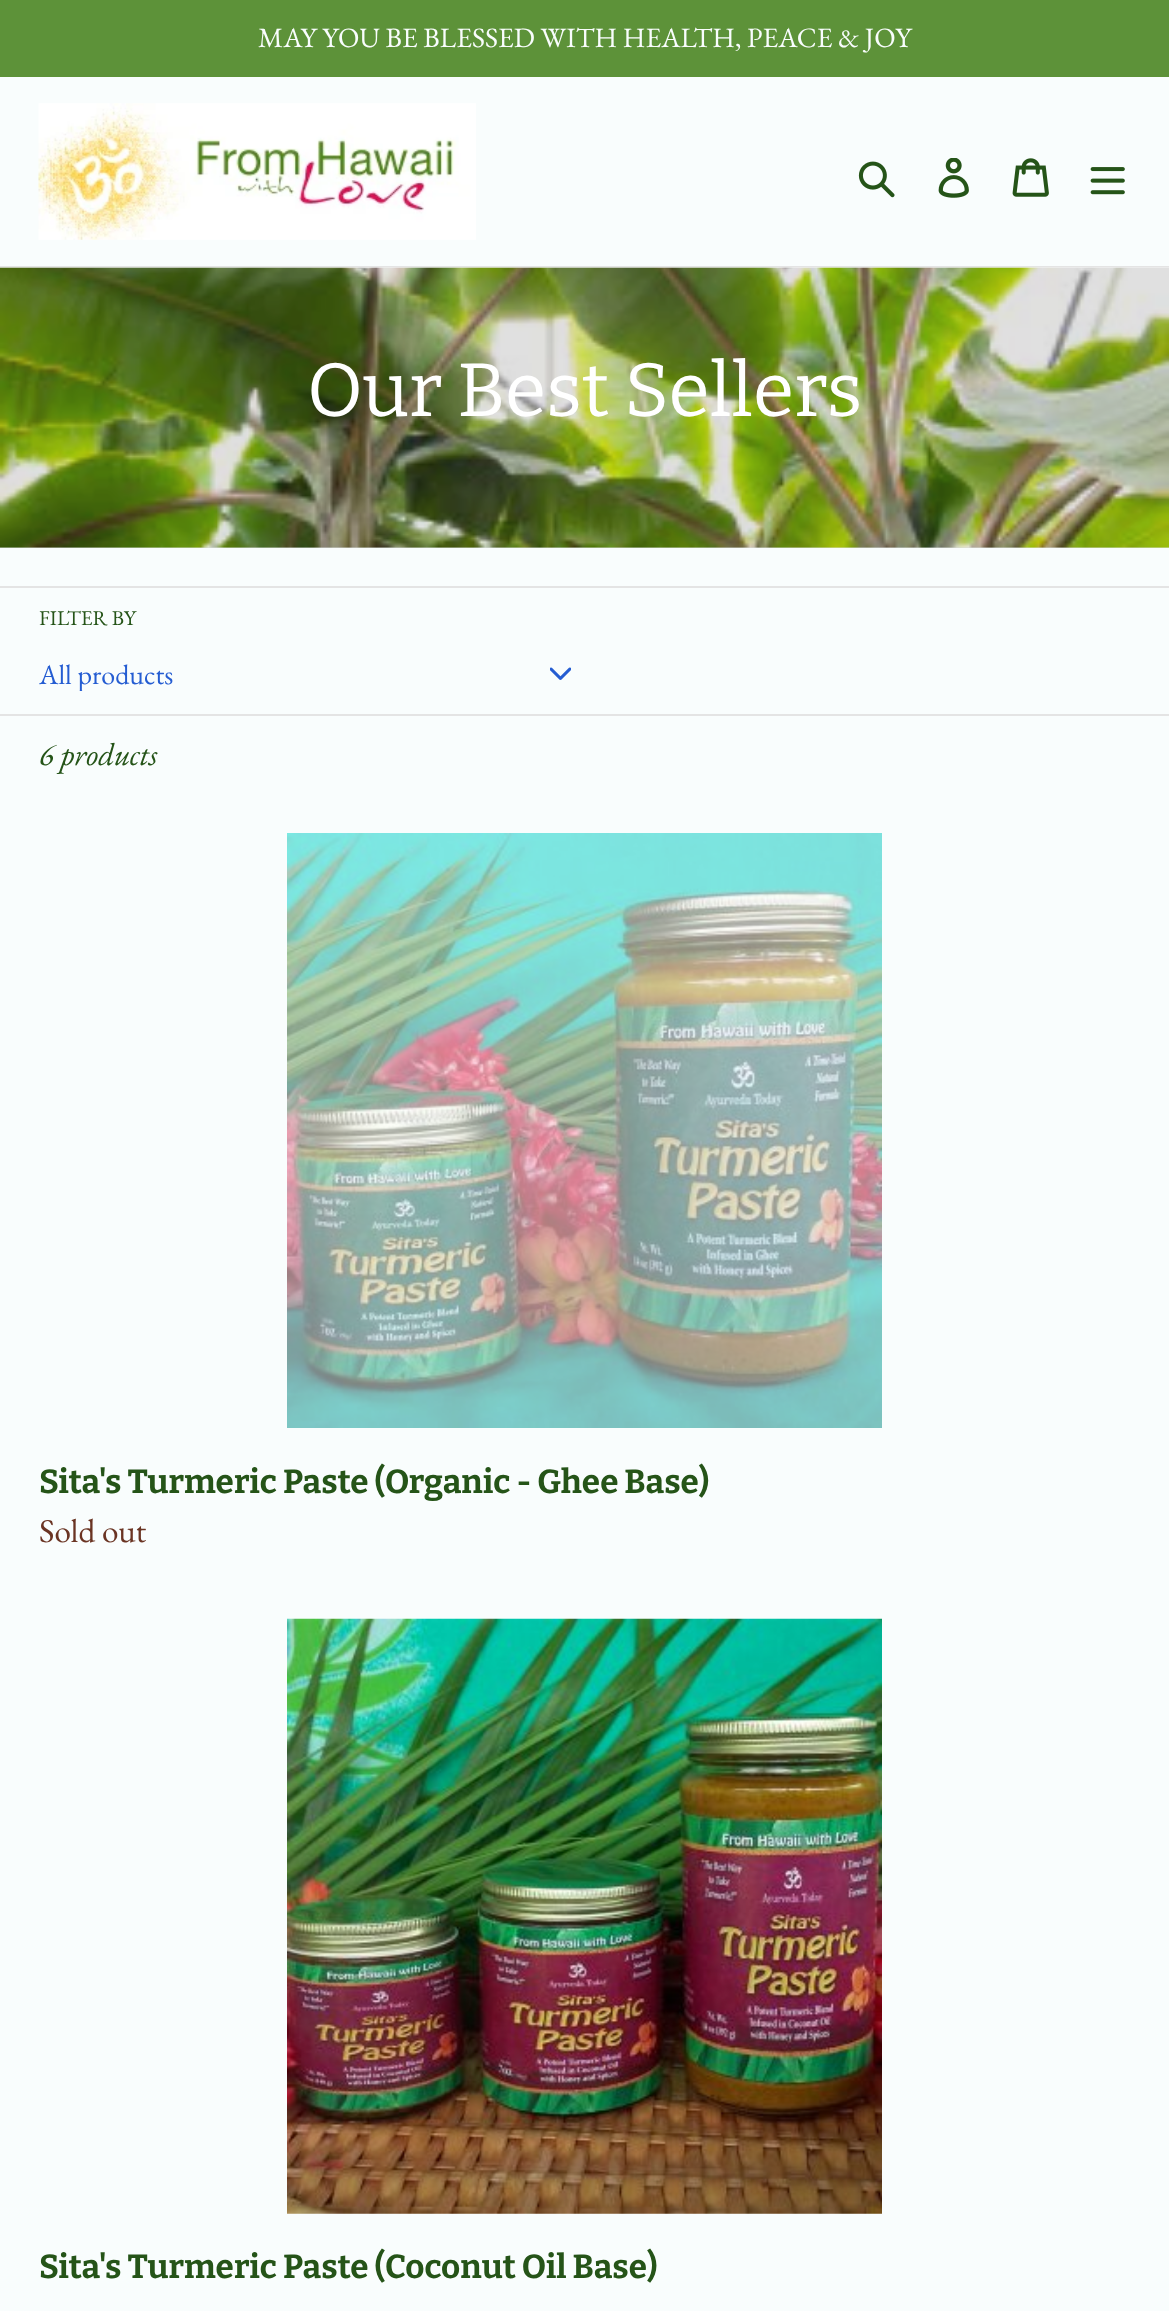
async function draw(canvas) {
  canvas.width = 1169;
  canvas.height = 2311;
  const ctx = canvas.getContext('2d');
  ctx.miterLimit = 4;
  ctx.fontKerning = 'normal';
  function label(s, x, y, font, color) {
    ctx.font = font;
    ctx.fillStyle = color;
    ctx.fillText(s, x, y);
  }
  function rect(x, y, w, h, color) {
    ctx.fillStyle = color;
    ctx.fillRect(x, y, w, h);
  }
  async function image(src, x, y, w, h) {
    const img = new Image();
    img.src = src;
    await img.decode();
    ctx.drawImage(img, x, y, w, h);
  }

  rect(0, 0, 1169, 2311, '#f9fdfd');
  rect(0, 547, 1169, 1, '#dbdede');
  rect(0, 0, 1169, 77, '#5d9239');
  label('MAY YOU BE BLESSED WITH HEALTH, PEACE & JOY', 258, 47, '28px EB Garamond', '#f9fdfd');
  rect(0, 266, 1169, 2, '#e4e4e4');
  await image('assets/img1.png', 38, 103, 438, 137);
  await image('assets/img2.png', 858, 161, 37, 37);
  await image('assets/img3.png', 938, 158, 31, 40);
  await image('assets/img4.png', 1012, 158, 37, 39);
  await image('assets/img5.png', 1090, 167, 35, 28);
  await image('assets/img6.png', 0, 267, 1169, 281);
  label('Our Best Sellers', 307, 416, '75.25px Bitter', '#fff');
  rect(0, 586, 1169, 2, '#e4e4e4');
  label('FILTER BY', 39, 625, '21px EB Garamond', '#255418');
  ctx.save();
  ctx.beginPath();
  ctx.rect(39, 658, 502, 33);
  ctx.clip();
  label('All products', 39, 684, '28px EB Garamond', '#255dd2');
  ctx.restore();
  await image('assets/img7.png', 550, 667, 21, 13);
  rect(0, 714, 1169, 2, '#e4e4e4');
  label('6 products', 39, 765, 'italic 31.5px EB Garamond', '#255418');
  await image('assets/img8.png', 287, 833, 595, 595);
  label('Sita\'s Turmeric Paste (Organic - Ghee Base)', 39, 1493, 'bold 33.25px Bitter', '#255418');
  label('Sold out', 39, 1542, '33.25px EB Garamond', '#6a3423');
  await image('assets/img9.png', 287, 1618, 595, 596);
  label('Sita\'s Turmeric Paste (Coconut Oil Base)', 39, 2278, 'bold 33.25px Bitter', '#255418');
}

draw(document.querySelector('canvas'));
